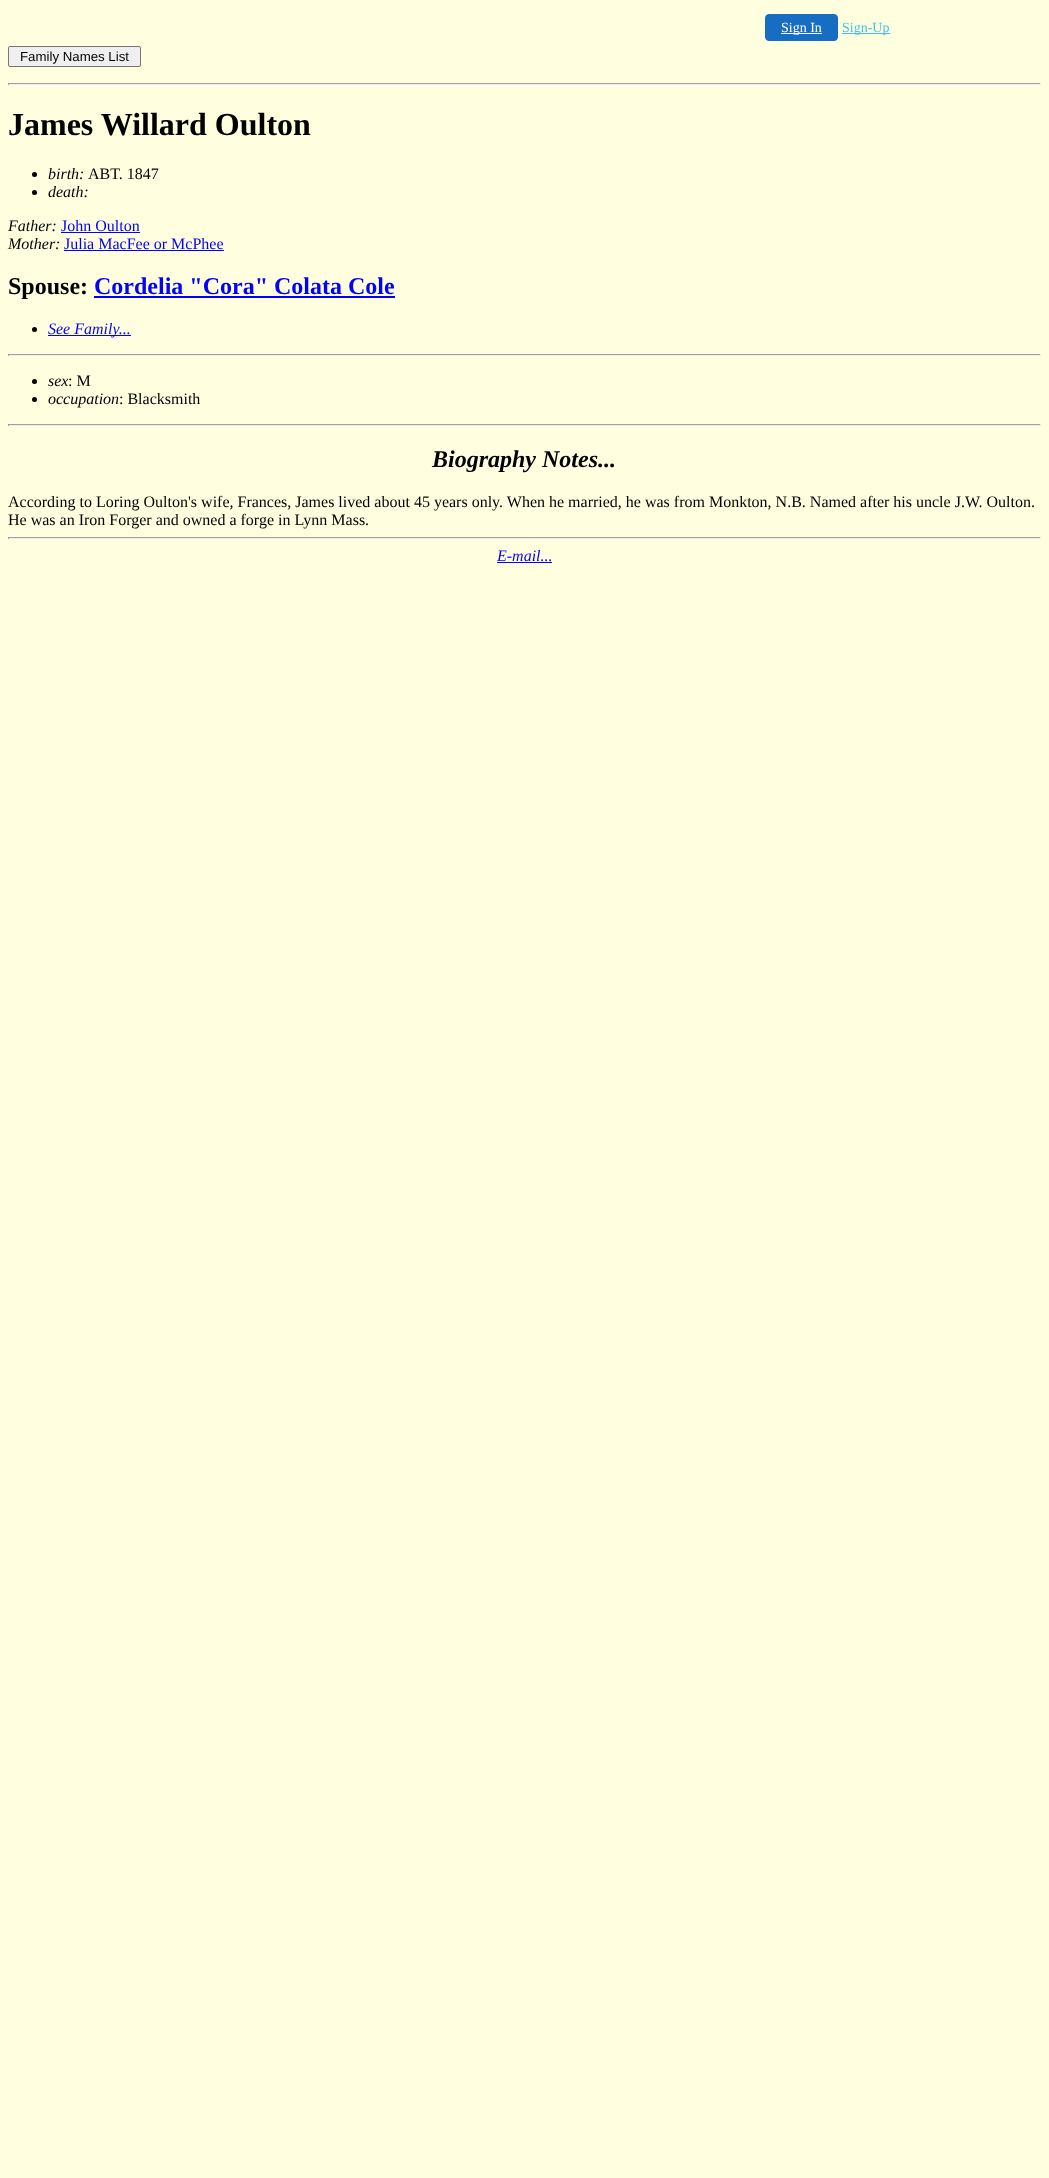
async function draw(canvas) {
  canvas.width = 1049;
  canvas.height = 2178;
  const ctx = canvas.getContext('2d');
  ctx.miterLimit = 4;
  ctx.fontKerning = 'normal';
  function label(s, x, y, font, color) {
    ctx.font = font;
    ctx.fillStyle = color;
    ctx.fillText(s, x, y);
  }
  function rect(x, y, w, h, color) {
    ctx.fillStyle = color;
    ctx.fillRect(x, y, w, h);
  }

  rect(0, 0, 1049, 2178, '#ffffe0');
  ctx.fillStyle = '#166dc2';
  ctx.beginPath();
  ctx.roundRect(765.5, 14.5, 72, 26, 3.5);
  ctx.fill();
  ctx.strokeStyle = '#166dc2';
  ctx.stroke();
  rect(781, 33, 41, 1, '#fff');
  label('Sign In', 781, 32, '14px Liberation Serif', '#fff');
  rect(842, 33, 48, 1, '#41c5e4');
  label('Sign-Up', 842, 32, '14px Liberation Serif', '#41c5e4');
  ctx.fillStyle = '#efefef';
  ctx.beginPath();
  ctx.roundRect(8.5, 46.5, 132, 20, 1.5);
  ctx.fill();
  ctx.strokeStyle = '#767676';
  ctx.stroke();
  label('Family Names List', 20, 61, '13.25px Liberation Sans', '#000');
  rect(8, 83, 1033, 1, '#9f9f9f');
  rect(1040, 83, 1, 2, '#eee');
  rect(8, 84, 1033, 1, '#eee');
  rect(8, 83, 1, 2, '#9f9f9f');
  label('James Willard Oulton', 8, 135, 'bold 32px Liberation Serif', '#000');
  ctx.beginPath();
  ctx.arc(34.5, 174.5, 2.5, 0, 2 * Math.PI);
  ctx.fill();
  label('birth:', 48, 179, 'italic 16px Liberation Serif', '#000');
  label('ABT. 1847', 88, 179, '16px Liberation Serif', '#000');
  ctx.beginPath();
  ctx.arc(34.5, 192.5, 2.5, 0, 2 * Math.PI);
  ctx.fill();
  label('death:', 48, 197, 'italic 16px Liberation Serif', '#000');
  label('Father:', 8, 231, 'italic 16px Liberation Serif', '#000');
  label('John Oulton', 61, 231, '16px Liberation Serif', '#00f');
  rect(61, 232, 79, 1, '#00f');
  label('Mother:', 8, 249, 'italic 16px Liberation Serif', '#000');
  label('Julia MacFee or McPhee', 64, 249, '16px Liberation Serif', '#00f');
  rect(64, 250, 160, 1, '#00f');
  label('Spouse:', 8, 294, 'bold 24px Liberation Serif', '#000');
  label('Cordelia "Cora" Colata Cole', 94, 294, 'bold 24px Liberation Serif', '#00f');
  rect(94, 296, 301, 2, '#00f');
  ctx.fillStyle = '#000';
  ctx.beginPath();
  ctx.arc(34.5, 329.5, 2.5, 0, 2 * Math.PI);
  ctx.fill();
  rect(48, 335, 83, 1, '#00f');
  label('See Family...', 48, 334, 'italic 16px Liberation Serif', '#00f');
  rect(8, 354, 1033, 1, '#9f9f9f');
  rect(1040, 354, 1, 2, '#eee');
  rect(8, 355, 1033, 1, '#eee');
  rect(8, 354, 1, 2, '#9f9f9f');
  ctx.fillStyle = '#000';
  ctx.beginPath();
  ctx.arc(34.5, 381.5, 2.5, 0, 2 * Math.PI);
  ctx.fill();
  label('sex', 48, 386, 'italic 16px Liberation Serif', '#000');
  label(': M', 68, 386, '16px Liberation Serif', '#000');
  ctx.beginPath();
  ctx.arc(34.5, 399.5, 2.5, 0, 2 * Math.PI);
  ctx.fill();
  label('occupation', 48, 404, 'italic 16px Liberation Serif', '#000');
  label(': Blacksmith', 119, 404, '16px Liberation Serif', '#000');
  rect(8, 424, 1033, 1, '#9f9f9f');
  rect(1040, 424, 1, 2, '#eee');
  rect(8, 425, 1033, 1, '#eee');
  rect(8, 424, 1, 2, '#9f9f9f');
  label('Biography Notes...', 432, 467, 'italic bold 24px Liberation Serif', '#000');
  label('According to Loring Oulton\'s wife, Frances, James lived about 45 years only. When he married, he was from Monkton, N.B. Named after his uncle J.W. Oulton.', 8, 507, '16px Liberation Serif', '#000');
  label('He was an Iron Forger and owned a forge in Lynn Mass.', 8, 525, '16px Liberation Serif', '#000');
  rect(8, 537, 1033, 1, '#9f9f9f');
  rect(1040, 537, 1, 2, '#eee');
  rect(8, 538, 1033, 1, '#eee');
  rect(8, 537, 1, 2, '#9f9f9f');
  label('E-mail...', 497, 561, 'italic 16px Liberation Serif', '#00f');
  rect(497, 562, 55, 1, '#00f');
}

draw(document.querySelector('canvas'));
